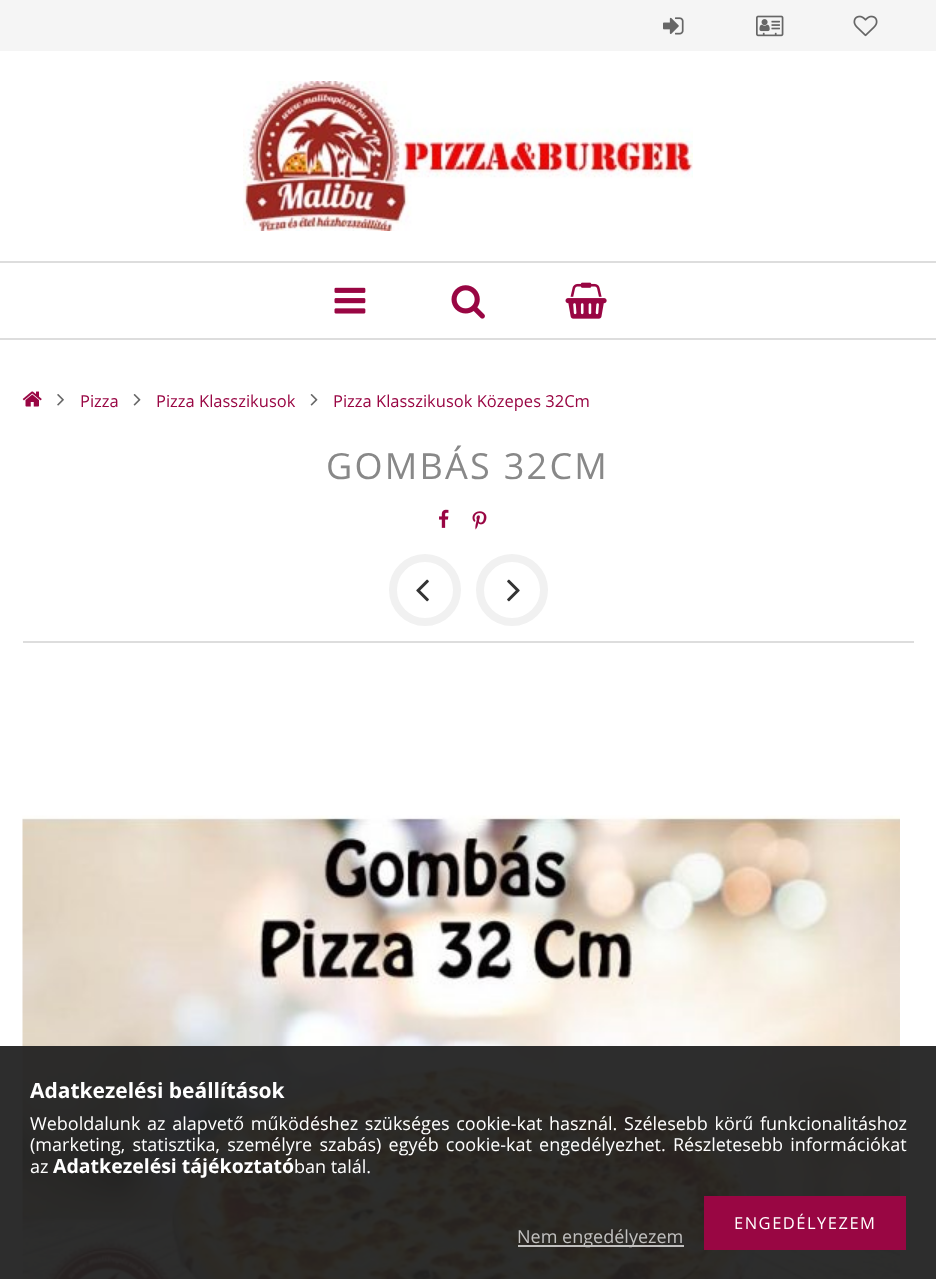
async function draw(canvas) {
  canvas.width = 936;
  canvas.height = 1279;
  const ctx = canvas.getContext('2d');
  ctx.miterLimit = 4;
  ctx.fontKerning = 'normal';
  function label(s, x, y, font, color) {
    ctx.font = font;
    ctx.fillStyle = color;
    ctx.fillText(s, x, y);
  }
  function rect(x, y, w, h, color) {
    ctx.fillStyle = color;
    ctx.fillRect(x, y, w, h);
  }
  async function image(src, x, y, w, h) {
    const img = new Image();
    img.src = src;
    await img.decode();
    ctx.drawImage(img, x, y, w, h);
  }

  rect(0, 0, 936, 1279, '#fff');
  rect(0, 0, 936, 51, '#f5f5f5');
  await image('assets/img1.png', 663, 17, 21, 18);
  await image('assets/img2.png', 756, 15, 28, 22);
  await image('assets/img3.png', 853, 15, 25, 22);
  await image('assets/img4.png', 243, 81, 450, 150);
  rect(0, 261, 936, 2, '#ddd');
  rect(0, 338, 936, 2, '#ddd');
  await image('assets/img5.png', 334, 287, 32, 27);
  await image('assets/img6.png', 451, 285, 34, 34);
  await image('assets/img7.png', 565, 282, 42, 37);
  await image('assets/img8.png', 22, 391, 20, 16);
  await image('assets/img9.png', 57, 394, 7, 12);
  label('Pizza', 80, 407, '16.5px Open Sans', '#990643');
  await image('assets/img10.png', 133, 394, 8, 12);
  label('Pizza Klasszikusok', 156, 407, '16.5px Open Sans', '#990643');
  await image('assets/img10.png', 310, 394, 8, 12);
  label('Pizza Klasszikusok Közepes 32Cm', 333, 407, '16.5px Open Sans', '#990643');
  rect(23, 641, 891, 2, '#ddd');
  ctx.letterSpacing = '2.25px';
  label('GOMBÁS 32CM', 326, 479, '36px Open Sans', '#888');
  await image('assets/img11.png', 439, 509, 10, 19);
  await image('assets/img12.png', 472, 511, 15, 19);
  ctx.beginPath();
  ctx.arc(425, 590, 32, 0, 2 * Math.PI);
  ctx.strokeStyle = '#f1f1f1';
  ctx.lineWidth = 8;
  ctx.stroke();
  await image('assets/img13.png', 416, 579, 13, 23);
  ctx.beginPath();
  ctx.arc(512, 590, 32, 0, 2 * Math.PI);
  ctx.stroke();
  await image('assets/img14.png', 507, 579, 13, 23);
  await image('assets/img15.png', 22, 815, 878, 464);
  rect(0, 1046, 936, 233, '#222222f2');
  ctx.letterSpacing = '0px';
  label('Adatkezelési beállítások', 30, 1098, 'bold 21px Open Sans', '#fff');
  ctx.wordSpacing = '2px';
  label('Weboldalunk az alapvető működéshez szükséges cookie-kat használ. Szélesebb körű funkcionalitáshoz', 30, 1130, '18px Open Sans', '#fff');
  ctx.wordSpacing = '2.5px';
  label('(marketing, statisztika, személyre szabás) egyéb cookie-kat engedélyezhet. Részletesebb információkat', 30, 1151, '18px Open Sans', '#fff');
  ctx.wordSpacing = '0px';
  label('az', 30, 1173, '18px Open Sans', '#fff');
  label('Adatkezelési tájékoztató', 53, 1173, 'bold 19.5px Open Sans', '#fff');
  label('ban talál.', 294, 1173, '18px Open Sans', '#fff');
  rect(704, 1196, 202, 54, '#990643');
  ctx.letterSpacing = '1.5px';
  label('ENGEDÉLYEZEM', 734, 1229, '16.5px Open Sans', '#fff');
  rect(518, 1245, 166, 2, '#ffffffb3');
  ctx.letterSpacing = '0px';
  label('Nem engedélyezem', 517, 1243, '18px Open Sans', '#c1c0bf');
}

draw(document.querySelector('canvas'));
